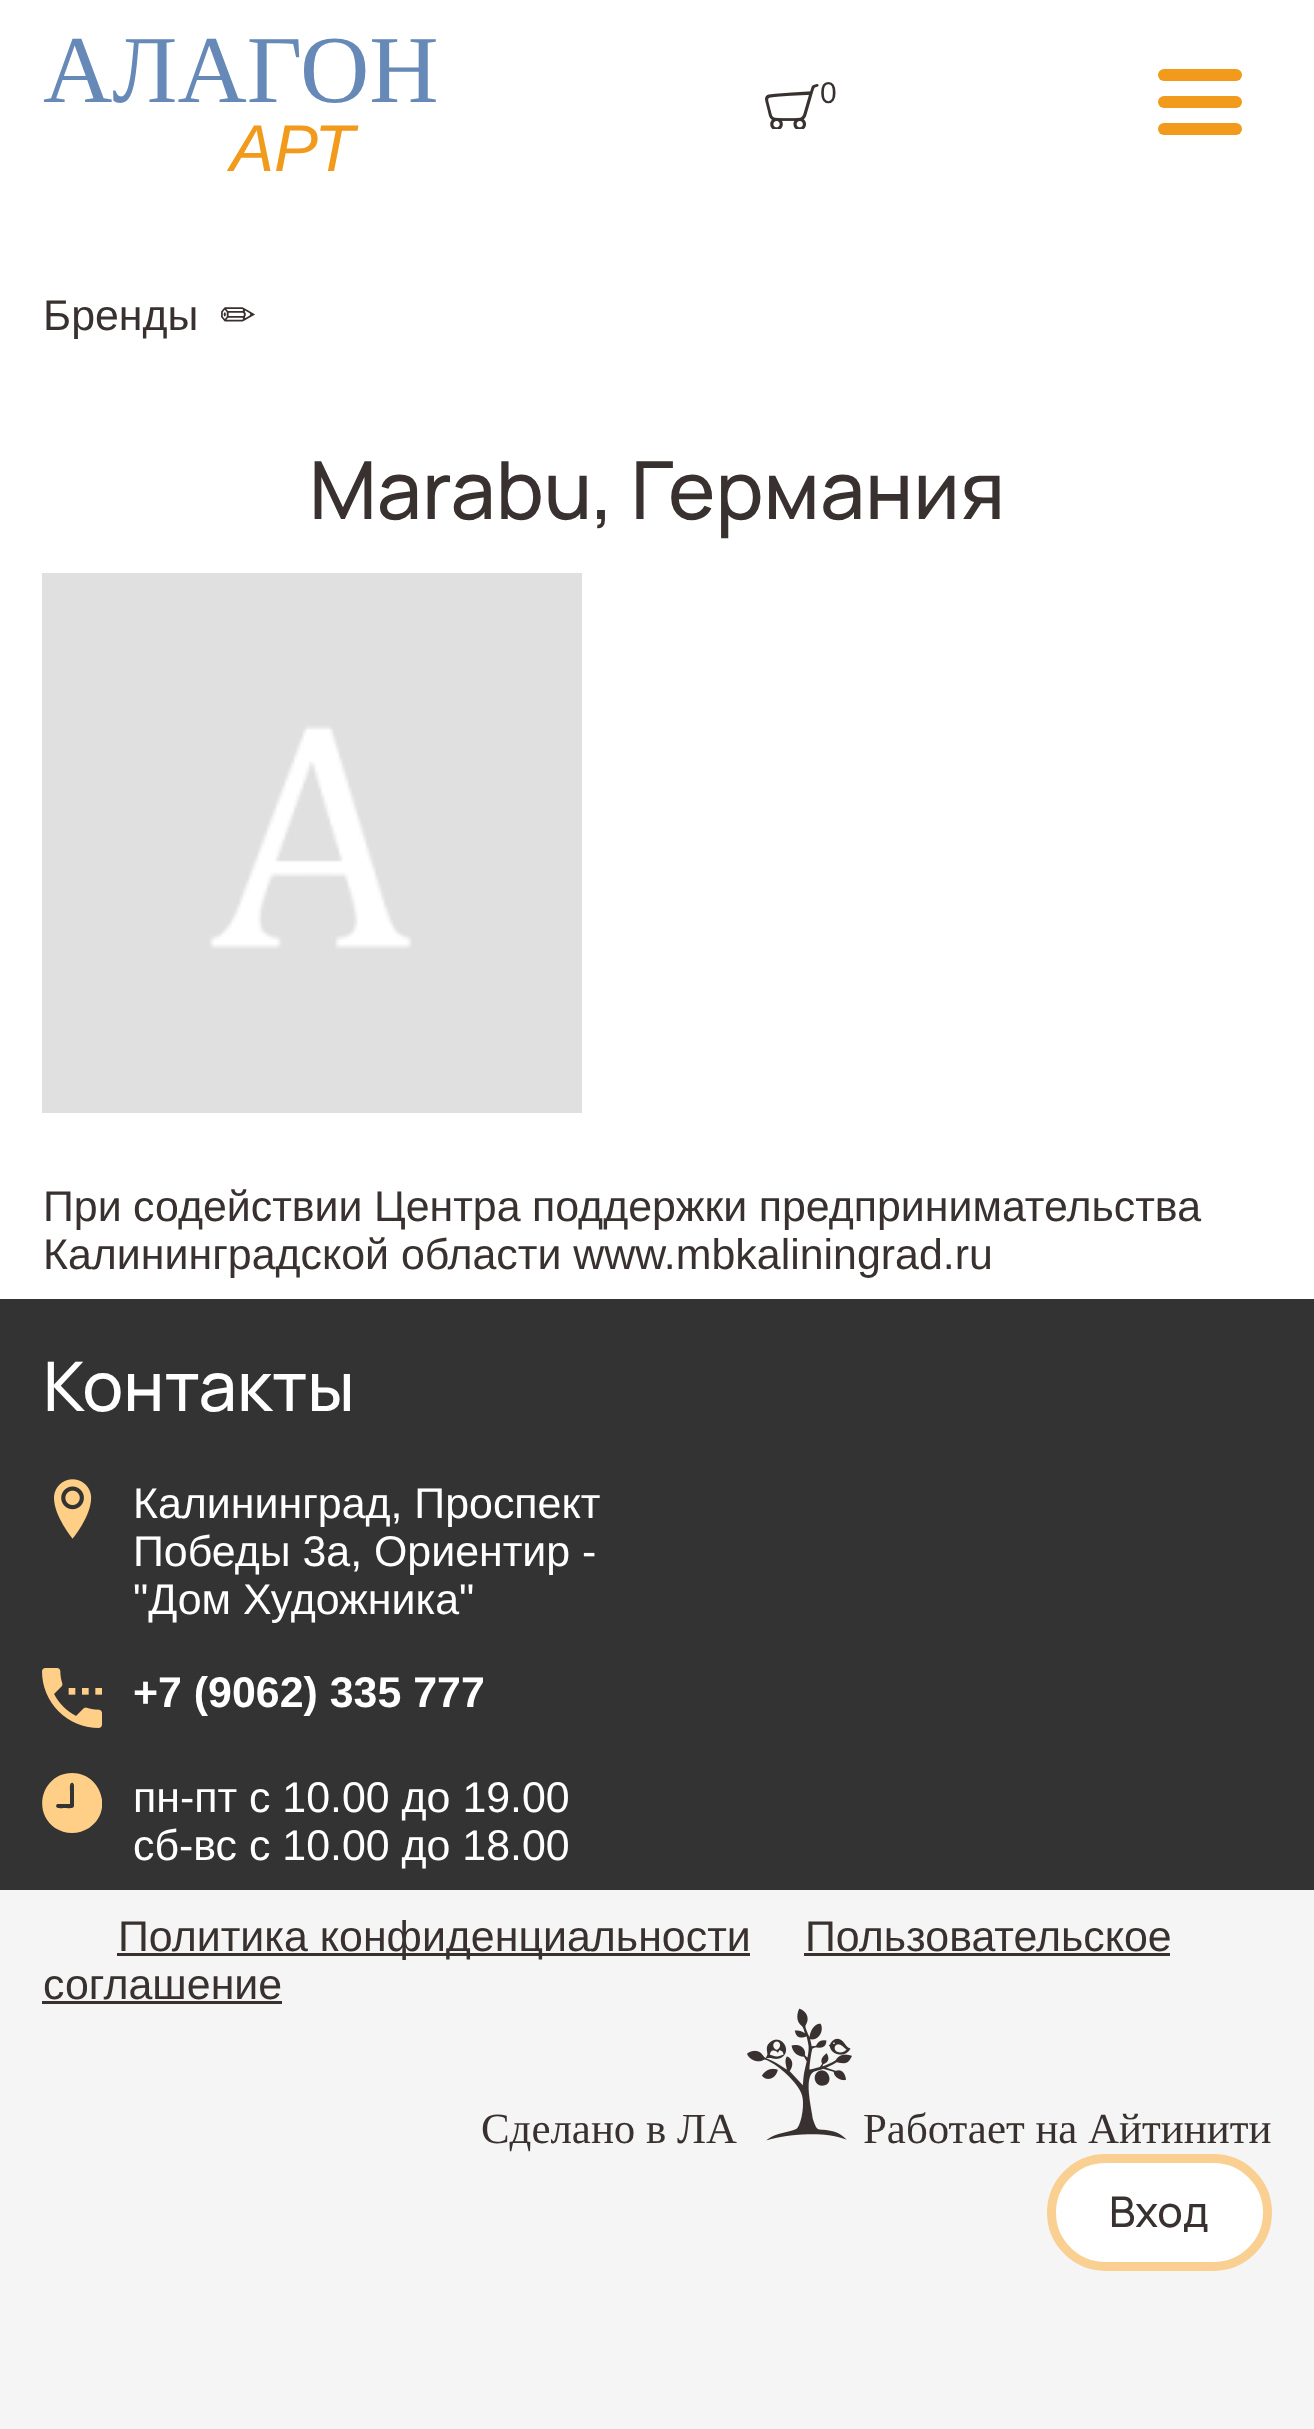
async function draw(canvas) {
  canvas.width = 1314;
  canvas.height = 2429;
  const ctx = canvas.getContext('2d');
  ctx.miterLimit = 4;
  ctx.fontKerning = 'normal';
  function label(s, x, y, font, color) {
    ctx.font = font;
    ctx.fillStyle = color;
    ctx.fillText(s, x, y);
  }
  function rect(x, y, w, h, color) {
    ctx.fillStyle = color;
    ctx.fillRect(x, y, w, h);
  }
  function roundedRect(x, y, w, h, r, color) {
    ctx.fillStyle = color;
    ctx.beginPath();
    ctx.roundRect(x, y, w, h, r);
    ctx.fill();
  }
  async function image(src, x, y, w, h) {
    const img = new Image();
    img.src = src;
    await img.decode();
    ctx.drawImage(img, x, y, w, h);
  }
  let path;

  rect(0, 0, 1314, 2429, '#f5f5f5');
  rect(0, 0, 1314, 1299, '#fff');
  label('АЛАГОН', 43, 102, '96px Liberation Serif', '#6789b7');
  label('АРТ', 230, 171, 'italic 66px Liberation Sans', '#f29a1c');
  await image('assets/img1.png', 765, 84, 54, 45);
  label('0', 820, 103, '30px Liberation Sans', '#38312f');
  roundedRect(1158, 69, 84, 12, 6, '#f29a1c');
  roundedRect(1158, 96, 84, 12, 6, '#f29a1c');
  roundedRect(1158, 123, 84, 12, 6, '#f29a1c');
  label('Бренды', 43, 330, '42.9px Liberation Sans', '#38312f');
  label('✏', 220, 330, '42.9px DejaVu Sans', '#38312f');
  label('Marabu, Германия', 309, 519, '500 80.25px Manrope', '#38312f');
  await image('assets/img2.png', 42, 573, 540, 540);
  ctx.wordSpacing = '-0.5px';
  label('При содействии Центра поддержки предпринимательства', 43, 1221, '42.9px Liberation Sans', '#38312f');
  ctx.wordSpacing = '0px';
  label('Калининградской области www.mbkaliningrad.ru', 43, 1269, '42.9px Liberation Sans', '#38312f');
  rect(0, 1299, 1314, 591, '#333');
  label('Контакты', 43, 1411, '500 68.5px Manrope', '#fff');
  await image('assets/img3.png', 54, 1479, 38, 60);
  label('Калининград, Проспект', 133, 1518, '42.9px Liberation Sans', '#fff');
  label('Победы 3а, Ориентир -', 133, 1566, '42.9px Liberation Sans', '#fff');
  label('"Дом Художника"', 133, 1614, '42.9px Liberation Sans', '#fff');
  await image('assets/img4.png', 42, 1668, 60, 60);
  label('+7 (9062) 335 777', 133, 1707, 'bold 42.9px Liberation Sans', '#fff');
  ctx.save();
  ctx.beginPath();
  ctx.rect(42, 1773, 60, 60);
  ctx.clip();
  ctx.fillStyle = '#ffce87';
  path = new Path2D('M72 1773C43 1773 31 1811 55 1828C60 1831 66 1833 72 1833C78 1833 84 1831 89 1828C114 1811 101 1773 72 1773ZM74 1806C74 1809 67 1808 65 1808C63 1808 56 1809 56 1806L57 1804H70V1791C70 1790 69 1781 73 1783L74 1785Z');
  ctx.fill(path);
  ctx.restore();
  label('пн-пт с 10.00 до 19.00', 133, 1812, '42.9px Liberation Sans', '#fff');
  label('сб-вс с 10.00 до 18.00', 133, 1860, '42.9px Liberation Sans', '#fff');
  rect(117, 1953, 633, 3, '#38312f');
  label('Политика конфиденциальности', 118, 1951, '42.9px Liberation Sans', '#38312f');
  label('Пользовательское', 805, 1951, '42.9px Liberation Sans', '#38312f');
  rect(804, 1953, 366, 3, '#38312f');
  label('соглашение', 43, 1999, '42.9px Liberation Sans', '#38312f');
  rect(42, 2001, 240, 3, '#38312f');
  label('Сделано в ЛА', 481, 2143, '42.9px Liberation Serif', '#38312f');
  await image('assets/img5.png', 747, 2008, 105, 133);
  label('Работает на Айтинити', 863, 2143, '42.9px Liberation Serif', '#38312f');
  ctx.fillStyle = '#fff';
  ctx.beginPath();
  ctx.roundRect(1051.5, 2158.5, 216, 108, 54);
  ctx.fill();
  ctx.strokeStyle = '#f9d092';
  ctx.lineWidth = 9;
  ctx.stroke();
  label('Вход', 1109, 2227, '500 42.5px Manrope', '#38312f');
}

draw(document.querySelector('canvas'));
